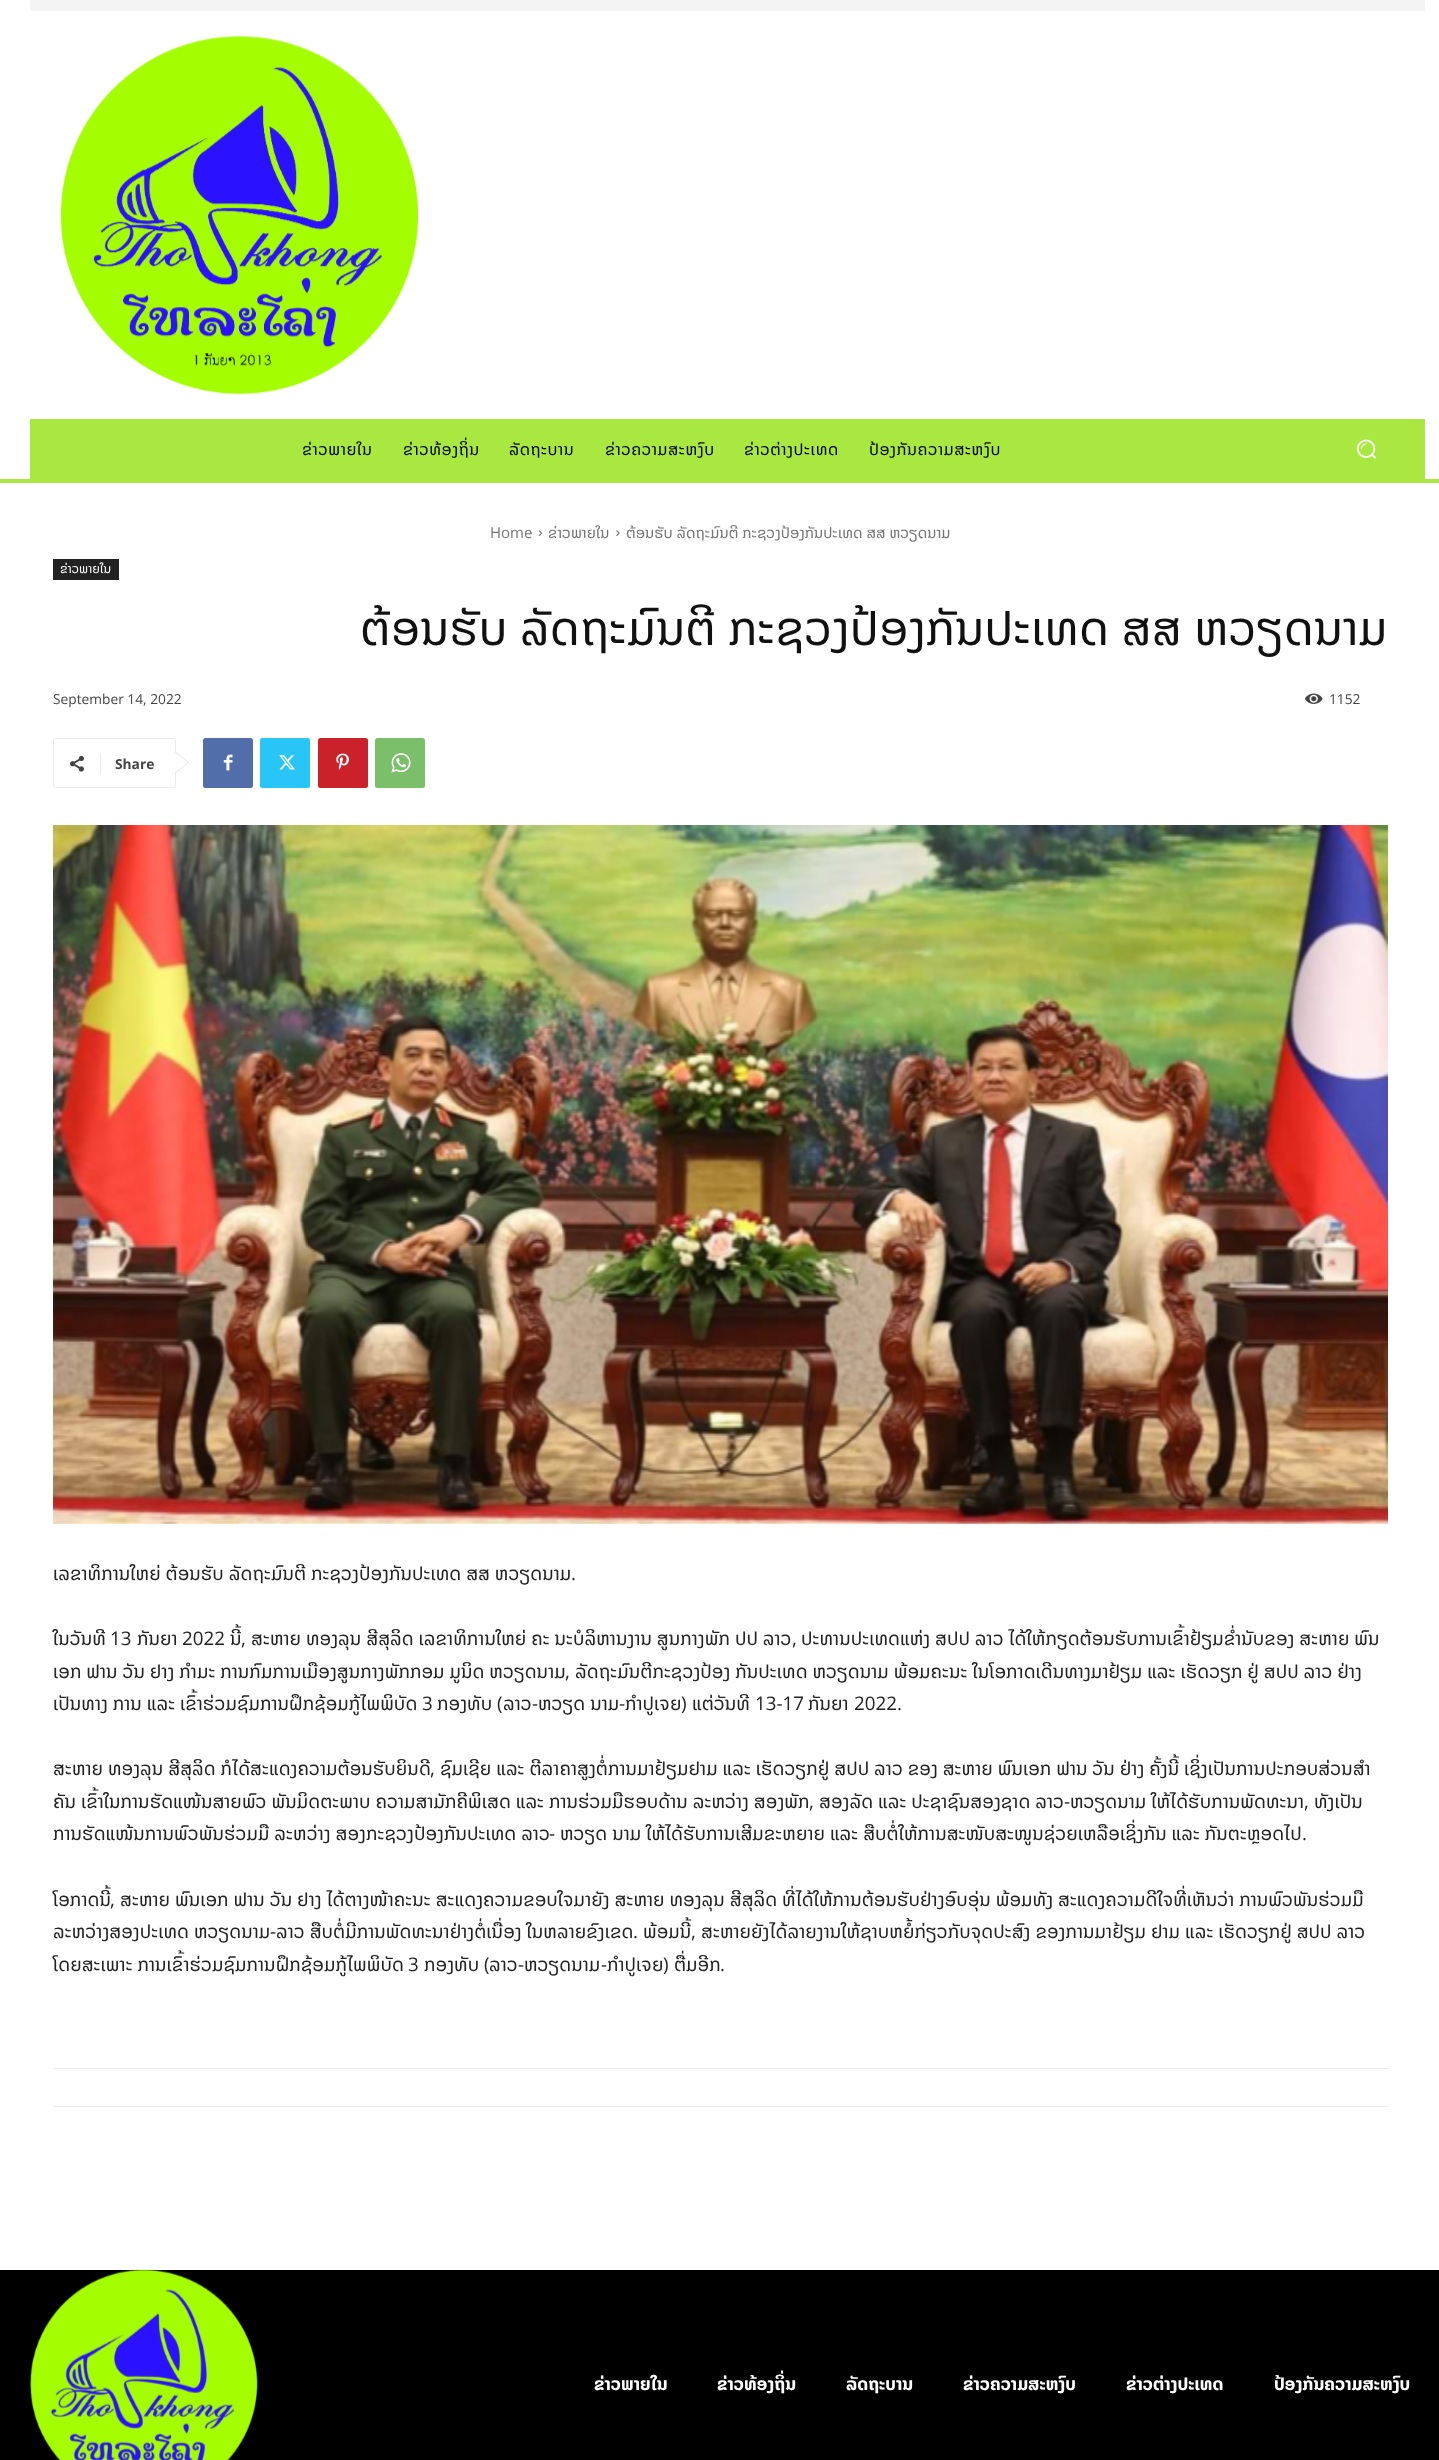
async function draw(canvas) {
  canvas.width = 1439;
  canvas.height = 2460;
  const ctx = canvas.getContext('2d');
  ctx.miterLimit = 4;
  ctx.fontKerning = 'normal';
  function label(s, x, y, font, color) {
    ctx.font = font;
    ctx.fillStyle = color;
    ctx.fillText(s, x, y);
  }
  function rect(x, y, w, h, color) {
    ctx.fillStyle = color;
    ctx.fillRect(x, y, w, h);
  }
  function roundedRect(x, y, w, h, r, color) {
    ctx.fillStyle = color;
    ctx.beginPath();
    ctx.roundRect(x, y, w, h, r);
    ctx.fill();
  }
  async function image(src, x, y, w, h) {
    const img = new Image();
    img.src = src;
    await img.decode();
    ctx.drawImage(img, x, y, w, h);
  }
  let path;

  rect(0, 0, 1439, 2460, '#fff');
  rect(30, 0, 1395, 11, '#f4f4f4');
  await image('assets/img1.png', 60, 36, 358, 359);
  rect(30, 419, 1395, 60, '#a8e840');
  ctx.letterSpacing = '0.5px';
  label('ຂ່າວພາຍໃນ', 302, 455, '16.25px Noto Sans Lao', '#000');
  label('ຂ່າວທ້ອງຖິ່ນ', 403, 455, '16.25px Noto Sans Lao', '#000');
  label('ລັດຖະບານ', 509, 455, '16.25px Noto Sans Lao', '#000');
  label('ຂ່າວຄວາມສະຫງົບ', 605, 455, '16.25px Noto Sans Lao', '#000');
  label('ຂ່າວຕ່າງປະເທດ', 744, 455, '16.25px Noto Sans Lao', '#000');
  label('ປ້ອງກັນຄວາມສະຫງົບ', 869, 455, '16.25px Noto Sans Lao', '#000');
  await image('assets/img2.png', 1356, 439, 20, 20);
  rect(0, 479, 1439, 4, '#a8e840');
  ctx.letterSpacing = '0px';
  label('Home', 490, 538, '15px Open Sans', '#747474');
  await image('assets/img3.png', 538, 530, 5, 7);
  label('ຂ່າວພາຍໃນ', 548, 538, '15px Noto Sans Lao', '#747474');
  await image('assets/img4.png', 616, 530, 4, 7);
  label('ຕ້ອນຮັບ ລັດຖະມົນຕີ ກະຊວງປ້ອງກັນປະເທດ ສສ ຫວຽດນາມ', 626, 538, '15px Noto Sans Lao', '#747474');
  rect(53, 559, 66, 21, '#222');
  label('ຂ່າວພາຍໃນ', 60, 573, '12.5px Noto Sans Lao', '#fff');
  label('ຕ້ອນຮັບ ລັດຖະມົນຕີ ກະຊວງປ້ອງກັນປະເທດ ສສ ຫວຽດນາມ', 360, 645, '47.5px Noto Sans Lao', '#111');
  label('September 14, 2022', 53, 704, '13.75px Open Sans', '#444');
  await image('assets/img5.png', 1305, 693, 18, 11);
  label('1152', 1329, 704, '13.75px Open Sans', '#444');
  ctx.beginPath();
  ctx.roundRect(53.5, 738.5, 122, 49, 2);
  ctx.strokeStyle = '#e9e9e9';
  ctx.stroke();
  ctx.fillStyle = '#e9e9e9';
  path = new Path2D('M175 774V751L189 762.5Z');
  ctx.fill(path);
  await image('assets/img6.png', 70, 755, 14, 17);
  rect(100, 754, 1, 20, '#ebebeb');
  label('Share', 115, 769, 'bold 13.75px Open Sans', '#444');
  ctx.fillStyle = '#fff';
  path = new Path2D('M175 772.5V752.5L187.5 762.5Z');
  ctx.fill(path);
  roundedRect(203, 738, 50, 50, 2.5, '#516eab');
  await image('assets/img7.png', 223, 754, 10, 17);
  roundedRect(260, 738, 50, 50, 2.5, '#29c5f6');
  await image('assets/img8.png', 279, 755, 16, 15);
  roundedRect(318, 738, 50, 50, 2.5, '#ca212a');
  await image('assets/img9.png', 336, 753, 13, 17);
  roundedRect(375, 738, 50, 50, 2.5, '#7bbf6a');
  await image('assets/img10.png', 391, 753, 20, 20);
  await image('assets/img11.png', 53, 825, 1335, 699);
  label('ເລຂາທິການໃຫຍ່ ຕ້ອນຮັບ ລັດຖະມົນຕີ ກະຊວງປ້ອງກັນປະເທດ ສສ ຫວຽດນາມ', 53, 1580, '18.75px Noto Sans Lao', '#222');
  label('.', 571, 1580, '18.75px Open Sans', '#222');
  label('ໃນວັນທີ', 53, 1645, '18.75px Noto Sans Lao', '#222');
  label('13', 110, 1645, '18.75px Open Sans', '#222');
  label('ກັນຍາ', 137, 1645, '18.75px Noto Sans Lao', '#222');
  label('2022', 182, 1645, '18.75px Open Sans', '#222');
  label('ນີ້', 230, 1645, '18.75px Noto Sans Lao', '#222');
  label(',', 241, 1645, '18.75px Open Sans', '#222');
  label('ສະຫາຍ ທອງລຸນ ສີສຸລິດ ເລຂາທິການໃຫຍ່ ຄະ ນະບໍລິຫານງານ ສູນກາງພັກ ປປ ລາວ', 251, 1645, '18.75px Noto Sans Lao', '#222');
  label(',', 792, 1645, '18.75px Open Sans', '#222');
  label('ປະທານປະເທດແຫ່ງ ສປປ ລາວ ໄດ້ໃຫ້ກຽດຕ້ອນຮັບການເຂົ້າຢ້ຽມຂໍ່ານັບຂອງ ສະຫາຍ ພົນ', 801, 1645, '18.75px Noto Sans Lao', '#222');
  label('ເອກ ຟານ ວັນ ຢາງ ກຳມະ ການກົມການເມືອງສູນກາງພັກກອມ ມູນິດ ຫວຽດນາມ', 53, 1678, '18.75px Noto Sans Lao', '#222');
  label(',', 565, 1678, '18.75px Open Sans', '#222');
  label('ລັດຖະມົນຕີກະຊວງປ້ອງ ກັນປະເທດ ຫວຽດນາມ ພ້ອມຄະນະ ໃນໂອກາດເດີນທາງມາຢ້ຽມ ແລະ ເຮັດວຽກ ຢູ່ ສປປ ລາວ ຢ່າງ', 575, 1678, '18.75px Noto Sans Lao', '#222');
  label('ເປັນທາງ ການ ແລະ ເຂົ້າຮ່ວມຊົມການຝຶກຊ້ອມກູ້ໄພພິບັດ', 53, 1710, '18.75px Noto Sans Lao', '#222');
  label('3', 422, 1710, '18.75px Open Sans', '#222');
  label('ກອງທັບ', 437, 1710, '18.75px Noto Sans Lao', '#222');
  label('(', 497, 1710, '18.75px Open Sans', '#222');
  label('ລາວ', 503, 1710, '18.75px Noto Sans Lao', '#222');
  label('-', 532, 1710, '18.75px Open Sans', '#222');
  label('ຫວຽດ ນາມ', 538, 1710, '18.75px Noto Sans Lao', '#222');
  label('-', 619, 1710, '18.75px Open Sans', '#222');
  label('ກຳປູເຈຍ', 625, 1710, '18.75px Noto Sans Lao', '#222');
  label(')', 681, 1710, '18.75px Open Sans', '#222');
  label('ແຕ່ວັນທີ', 692, 1710, '18.75px Noto Sans Lao', '#222');
  label('13-17', 755, 1710, '18.75px Open Sans', '#222');
  label('ກັນຍາ', 808, 1710, '18.75px Noto Sans Lao', '#222');
  label('2022.', 854, 1710, '18.75px Open Sans', '#222');
  label('ສະຫາຍ ທອງລຸນ ສີສຸລິດ ກໍໄດ້ສະແດງຄວາມຕ້ອນຮັບຍິນດີ', 53, 1775, '18.75px Noto Sans Lao', '#222');
  label(',', 430, 1775, '18.75px Open Sans', '#222');
  label('ຊົມເຊີຍ ແລະ ຕີລາຄາສູງຕໍ່ການມາຢ້ຽມຢາມ ແລະ ເຮັດວຽກຢູ່ ສປປ ລາວ ຂອງ ສະຫາຍ ພົນເອກ ຟານ ວັນ ຢ່າງ ຄັ້ງນີ້ ເຊິ່ງເປັນການປະກອບສ່ວນສໍາ', 440, 1775, '18.75px Noto Sans Lao', '#222');
  label('ຄັນ ເຂົ້າໃນການຮັດແໜ້ນສາຍພົວ ພັນມິດຕະພາບ ຄວາມສາມັກຄີພິເສດ ແລະ ການຮ່ວມມືຮອບດ້ານ ລະຫວ່າງ ສອງພັກ', 53, 1808, '18.75px Noto Sans Lao', '#222');
  label('ສອງລັດ ແລະ ປະຊາຊົນສອງຊາດ ລາວ', 819, 1808, '18.75px Noto Sans Lao', '#222');
  label('-', 1064, 1808, '18.75px Open Sans', '#222');
  label('ຫວຽດນາມ ໃຫ້ໄດ້ຮັບການພັດທະນາ', 1070, 1808, '18.75px Noto Sans Lao', '#222');
  label(',', 1304, 1808, '18.75px Open Sans', '#222');
  label('ທັງເປັນ', 1314, 1808, '18.75px Noto Sans Lao', '#222');
  label(',', 809, 1808, '18.75px Open Sans', '#222');
  label('ການຮັດແໜ້ນການພົວພັນຮ່ວມມື ລະຫວ່າງ ສອງກະຊວງປ້ອງກັນປະເທດ ລາວ', 53, 1840, '18.75px Noto Sans Lao', '#222');
  label('-', 549, 1840, '18.75px Open Sans', '#222');
  label('ຫວຽດ ນາມ ໃຫ້ໄດ້ຮັບການເສີມຂະຫຍາຍ ແລະ ສືບຕໍ່ໃຫ້ການສະໜັບສະໜູນຊ່ວຍເຫລືອເຊິ່ງກັນ ແລະ ກັນຕະຫຼອດໄປ', 560, 1840, '18.75px Noto Sans Lao', '#222');
  label('.', 1302, 1840, '18.75px Open Sans', '#222');
  label('ໂອກາດນີ້', 53, 1906, '18.75px Noto Sans Lao', '#222');
  label(',', 110, 1906, '18.75px Open Sans', '#222');
  label('ສະຫາຍ ພົນເອກ ຟານ ວັນ ຢາງ ໄດ້ຕາງໜ້າຄະນະ ສະແດງຄວາມຂອບໃຈມາຍັງ ສະຫາຍ ທອງລຸນ ສີສຸລິດ ທີ່ໄດ້ໃຫ້ການຕ້ອນຮັບຢ່າງອົບອຸ່ນ ພ້ອມທັງ ສະແດງຄວາມດີໃຈທີ່ເຫັນວ່າ ການພົວພັນຮ່ວມມື', 120, 1906, '18.75px Noto Sans Lao', '#222');
  label('ລະຫວ່າງສອງປະເທດ ຫວຽດນາມ', 53, 1938, '18.75px Noto Sans Lao', '#222');
  label('-', 270, 1938, '18.75px Open Sans', '#222');
  label('ລາວ ສືບຕໍ່ມີການພັດທະນາຢ່າງຕໍ່ເນື່ອງ ໃນຫລາຍຂົງເຂດ', 276, 1938, '18.75px Noto Sans Lao', '#222');
  label('.', 633, 1938, '18.75px Open Sans', '#222');
  label('ພ້ອມນີ້', 643, 1938, '18.75px Noto Sans Lao', '#222');
  label('ສະຫາຍຍັງໄດ້ລາຍງານໃຫ້ຊາບຫຍໍ້ກ່ຽວກັບຈຸດປະສົງ ຂອງການມາຢ້ຽມ ຢາມ ແລະ ເຮັດວຽກຢູ່ ສປປ ລາວ', 701, 1938, '18.75px Noto Sans Lao', '#222');
  label(',', 691, 1938, '18.75px Open Sans', '#222');
  label('ໂດຍສະເພາະ ການເຂົ້າຮ່ວມຊົມການຝຶກຊ້ອມກູ້ໄພພິບັດ', 53, 1971, '18.75px Noto Sans Lao', '#222');
  label('3', 408, 1971, '18.75px Open Sans', '#222');
  label('ກອງທັບ', 424, 1971, '18.75px Noto Sans Lao', '#222');
  label('(', 484, 1971, '18.75px Open Sans', '#222');
  label('-', 601, 1971, '18.75px Open Sans', '#222');
  label('ກຳປູເຈຍ', 607, 1971, '18.75px Noto Sans Lao', '#222');
  label(')', 663, 1971, '18.75px Open Sans', '#222');
  label('ຕື່ມອີກ', 674, 1971, '18.75px Noto Sans Lao', '#222');
  label('ລາວ', 489, 1971, '18.75px Noto Sans Lao', '#222');
  label('-', 518, 1971, '18.75px Open Sans', '#222');
  label('ຫວຽດນາມ', 524, 1971, '18.75px Noto Sans Lao', '#222');
  label('.', 720, 1971, '18.75px Open Sans', '#222');
  rect(53, 2068, 1335, 1, '#ebebeb');
  rect(53, 2106, 1335, 1, '#ebebeb');
  rect(0, 2270, 1439, 190, '#000');
  await image('assets/img12.png', 30, 2269, 228, 191);
  label('ຂ່າວພາຍໃນ', 594, 2390, 'bold 17.5px Noto Sans Lao', '#fff');
  label('ຂ່າວທ້ອງຖິ່ນ', 717, 2390, 'bold 17.5px Noto Sans Lao', '#fff');
  label('ລັດຖະບານ', 846, 2390, 'bold 17.5px Noto Sans Lao', '#fff');
  label('ຂ່າວຄວາມສະຫງົບ', 963, 2390, 'bold 17.5px Noto Sans Lao', '#fff');
  label('ຂ່າວຕ່າງປະເທດ', 1126, 2390, 'bold 17.5px Noto Sans Lao', '#fff');
  label('ປ້ອງກັນຄວາມສະຫງົບ', 1274, 2390, 'bold 17.5px Noto Sans Lao', '#fff');
}

draw(document.querySelector('canvas'));
